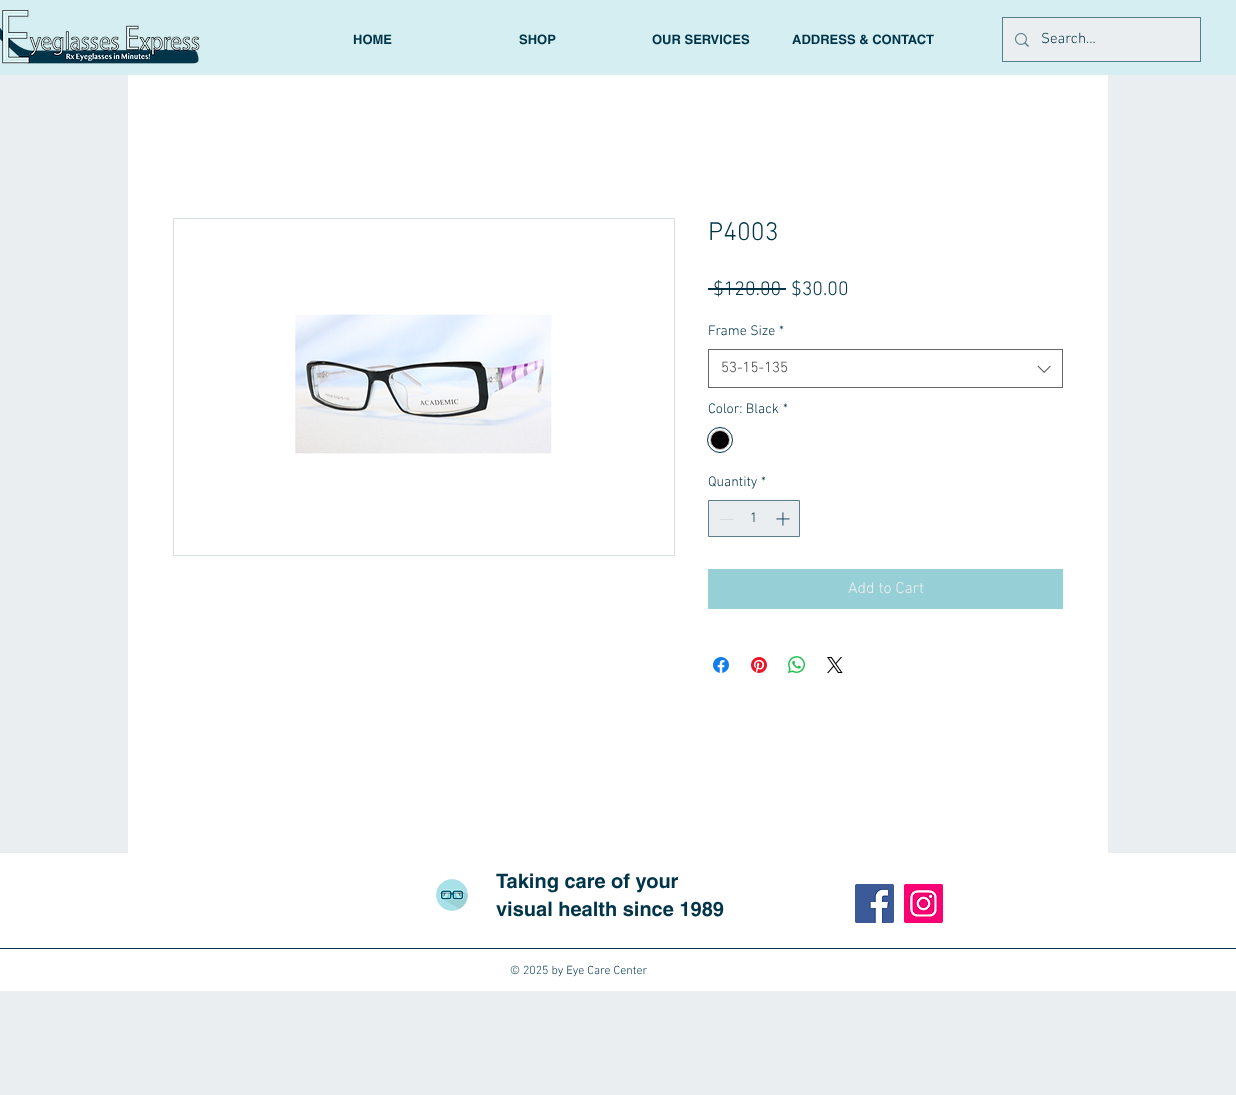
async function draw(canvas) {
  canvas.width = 1236;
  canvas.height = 1095;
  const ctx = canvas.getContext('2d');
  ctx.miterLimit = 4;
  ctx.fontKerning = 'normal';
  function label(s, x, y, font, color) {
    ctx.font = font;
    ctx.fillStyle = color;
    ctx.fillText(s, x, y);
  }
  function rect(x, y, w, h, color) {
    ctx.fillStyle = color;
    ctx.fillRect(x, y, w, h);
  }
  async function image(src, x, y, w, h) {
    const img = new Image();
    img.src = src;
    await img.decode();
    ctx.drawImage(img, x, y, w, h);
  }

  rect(0, 0, 1236, 1095, '#eaeef0');
  rect(0, 0, 1236, 75, '#d5eef1');
  await image('assets/img1.png', 0, 10, 200, 54);
  label('HOME', 353, 44, 'bold 13px helvetica', '#003449');
  label('SHOP', 519, 44, 'bold 13px helvetica', '#003449');
  label('OUR SERVICES', 652, 44, 'bold 13px helvetica', '#003449');
  label('ADDRESS & CONTACT', 792, 44, 'bold 13px helvetica', '#003449');
  ctx.strokeStyle = '#557e8c';
  ctx.strokeRect(1002.5, 17.5, 198, 44);
  rect(1003, 18, 197, 43, '#eaeef0');
  await image('assets/img2.png', 1015, 33, 14, 14);
  label('Search...', 1041, 43, '300 15px "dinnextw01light"', '#003449');
  rect(128, 75, 980, 778, '#fff');
  ctx.strokeStyle = '#d8e0e3';
  ctx.strokeRect(173.5, 218.5, 501, 337);
  await image('assets/img3.png', 295, 314, 257, 140);
  label('P4003', 708, 240, '300 26px "dinnextw01light"', '#003449');
  label('$120.00', 713, 295, '300 20px "dinnextw01light"', '#003449');
  rect(708, 288, 78, 2, '#003449');
  label('$30.00', 791, 295, '300 20px "dinnextw01light"', '#003449');
  label('Frame Size', 708, 335, '300 14px "dinnextw01light"', '#003449');
  label('*', 779, 335, '300 14px "dinnextw01light"', '#003449');
  ctx.strokeStyle = '#666';
  ctx.strokeRect(708.5, 349.5, 354, 38);
  label('53-15-135', 721, 372, '300 15px "dinnextw01light"', '#444');
  await image('assets/img4.png', 1037, 365, 14, 8);
  label('Color: Black', 708, 413, '300 14px "dinnextw01light"', '#003449');
  label('*', 783, 413, '300 14px "dinnextw01light"', '#003449');
  ctx.beginPath();
  ctx.arc(720, 440, 12.5, 0, 2 * Math.PI);
  ctx.strokeStyle = '#003449';
  ctx.stroke();
  ctx.fillStyle = '#000';
  ctx.beginPath();
  ctx.arc(720, 440, 9.5, 0, 2 * Math.PI);
  ctx.fill();
  ctx.strokeStyle = '#c9c9c9';
  ctx.stroke();
  label('Quantity', 708, 486, '300 14px "dinnextw01light"', '#003449');
  label('*', 761, 486, '300 14px "dinnextw01light"', '#003449');
  ctx.fillStyle = '#eaeef0';
  ctx.beginPath();
  ctx.rect(708.5, 500.5, 91, 36);
  ctx.fill();
  ctx.strokeStyle = '#5e7e8c';
  ctx.stroke();
  rect(720, 519, 13, 1, '#d9dbdc');
  label('1', 750, 522, '300 14px "dinnextw01light"', '#003449');
  await image('assets/img5.png', 776, 512, 14, 14);
  rect(708, 569, 355, 40, '#96cfd5');
  label('Add to Cart', 848, 593, '300 16px "dinnextw01light"', '#eaeef0');
  await image('assets/img6.png', 713, 657, 16, 16);
  await image('assets/img7.png', 751, 657, 16, 16);
  await image('assets/img8.png', 788, 656, 17, 17);
  await image('assets/img9.png', 827, 657, 16, 16);
  rect(0, 853, 1236, 138, '#fff');
  await image('assets/img10.png', 436, 879, 32, 32);
  label('Taking care of your', 496, 888, 'bold 20px helvetica', '#003449');
  label('visual health since 1989', 496, 916, 'bold 20px helvetica', '#003449');
  await image('assets/img11.png', 855, 884, 39, 39);
  await image('assets/img12.png', 904, 884, 39, 39);
  rect(0, 948, 1236, 1, '#003449');
  label('© 2025 by Eye Care Center', 510, 974, '300 12px "dinnextw01light"', '#003449');
}

draw(document.querySelector('canvas'));
